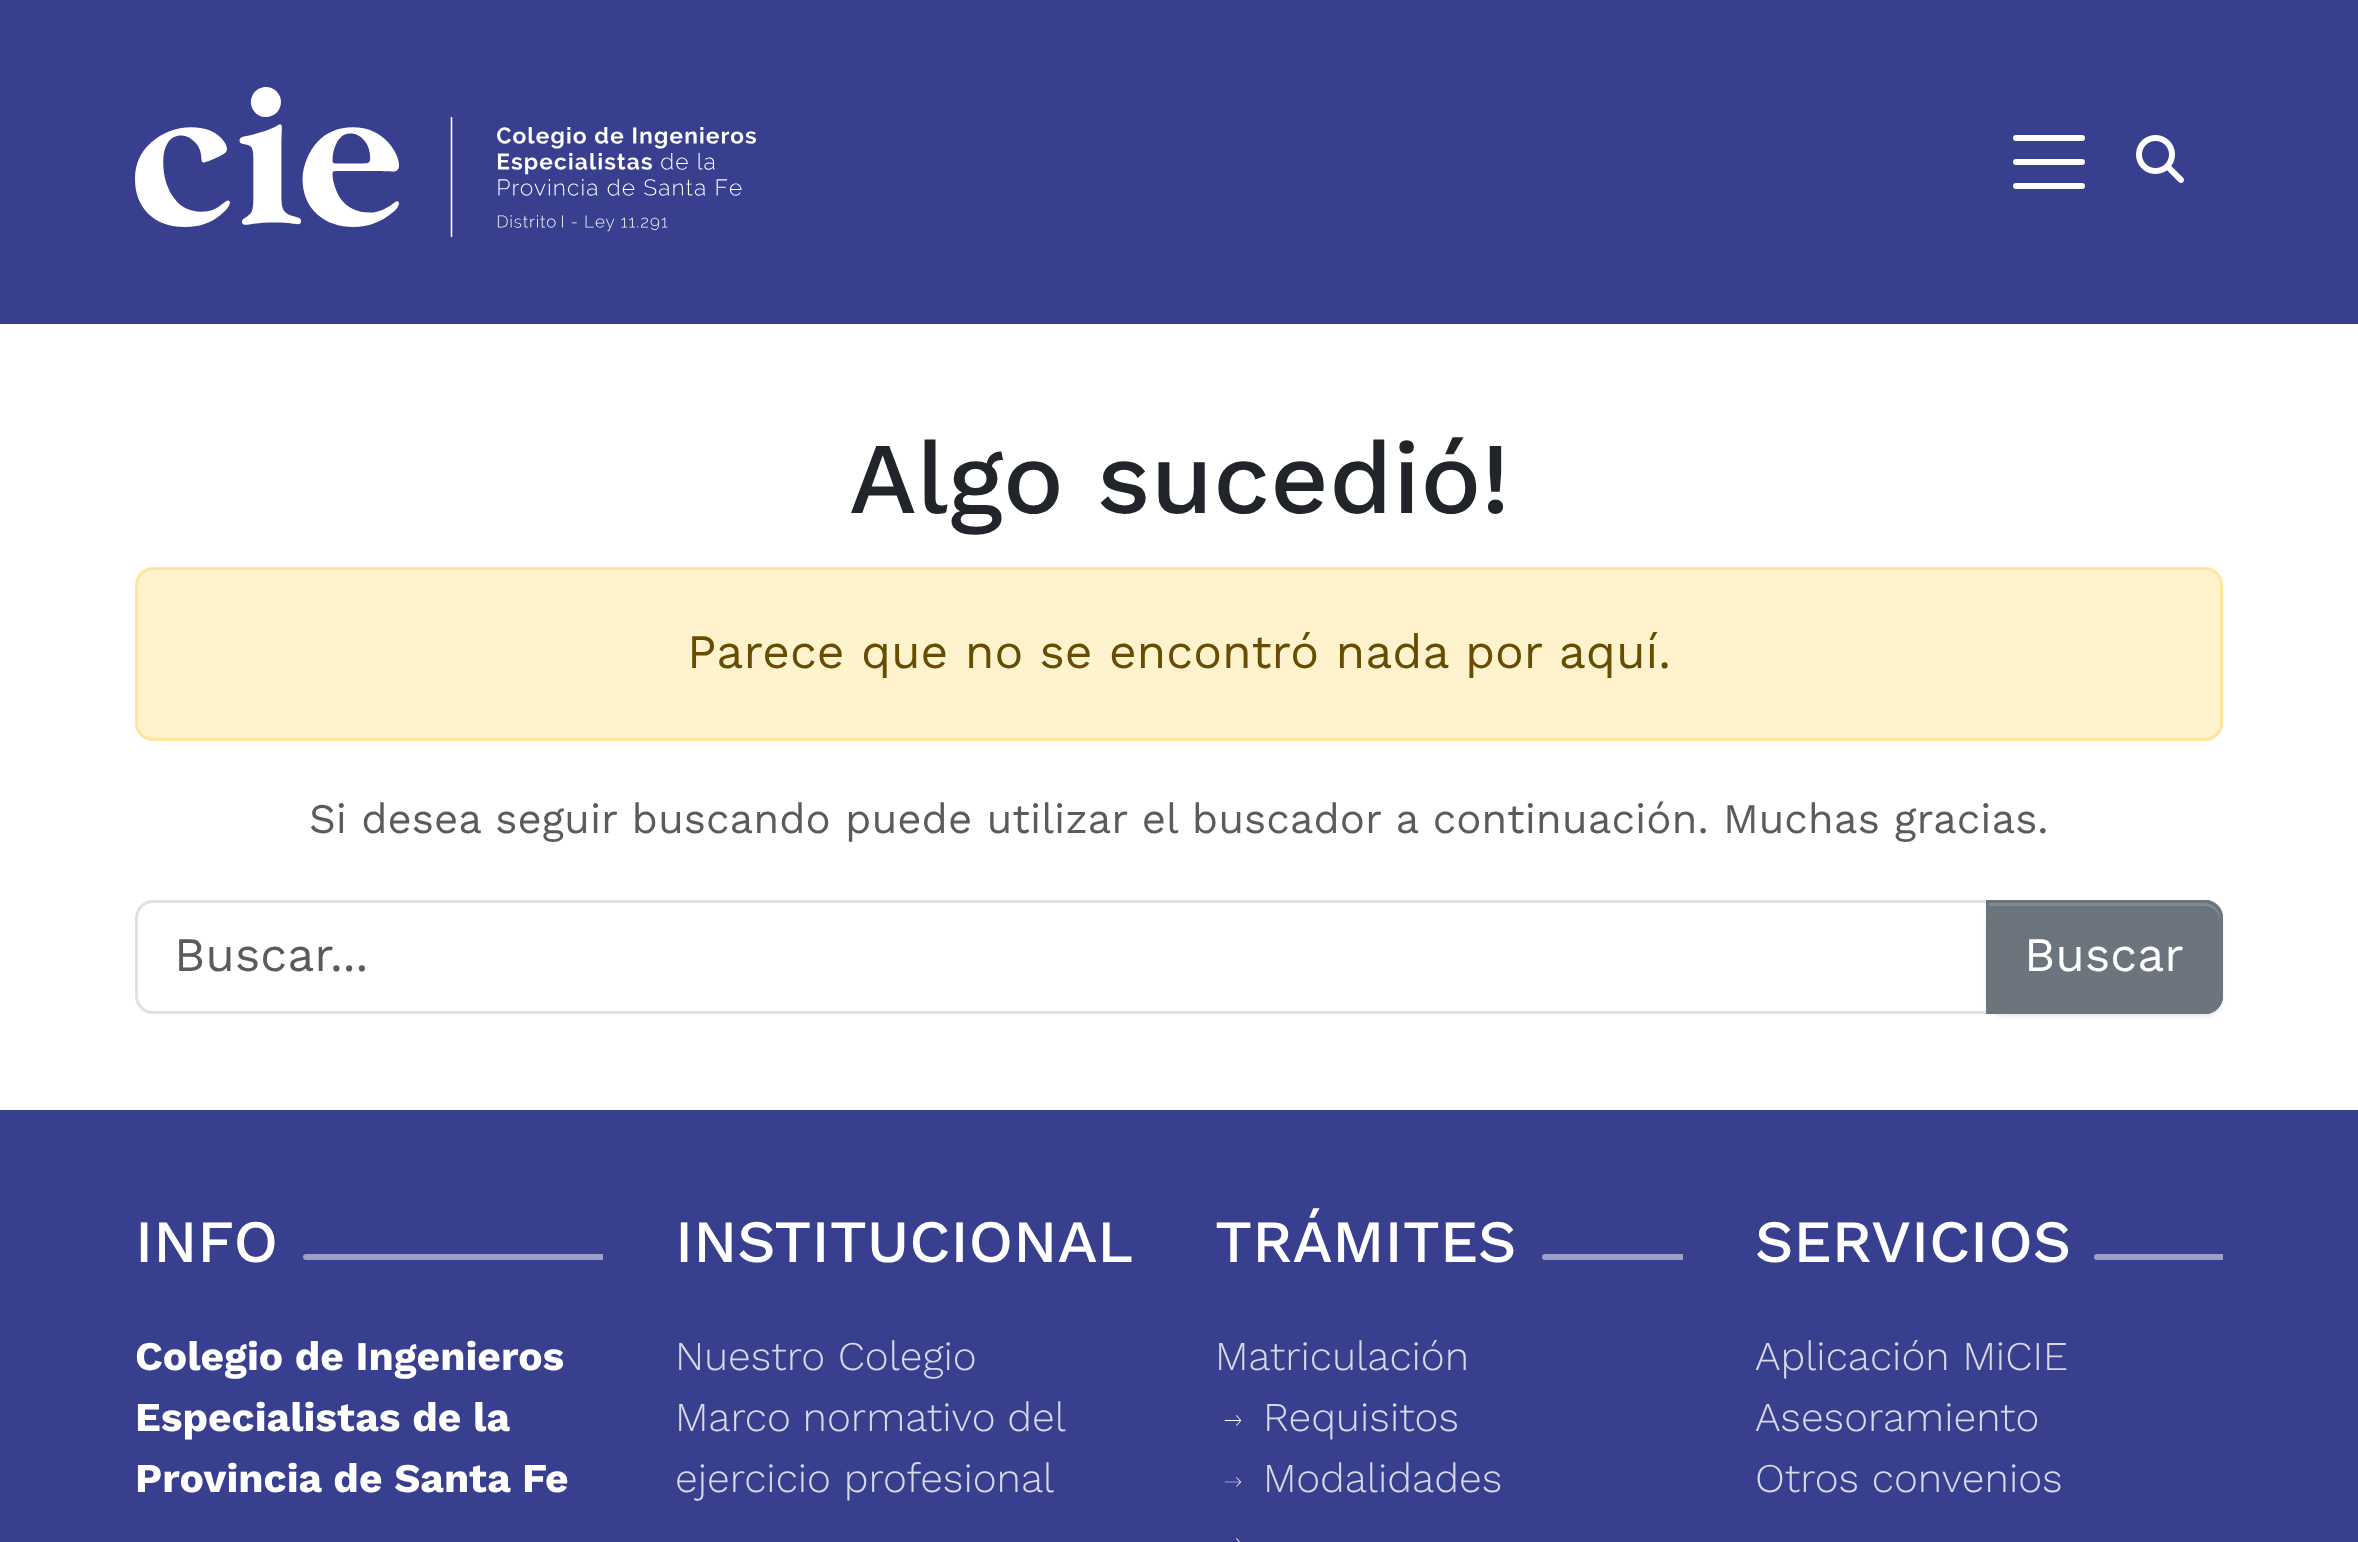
async function draw(canvas) {
  canvas.width = 2358;
  canvas.height = 1542;
  const ctx = canvas.getContext('2d');
  ctx.miterLimit = 4;
  ctx.fontKerning = 'normal';
  function label(s, x, y, font, color) {
    ctx.font = font;
    ctx.fillStyle = color;
    ctx.fillText(s, x, y);
  }
  function rect(x, y, w, h, color) {
    ctx.fillStyle = color;
    ctx.fillRect(x, y, w, h);
  }
  async function image(src, x, y, w, h) {
    const img = new Image();
    img.src = src;
    await img.decode();
    ctx.drawImage(img, x, y, w, h);
  }
  let path;

  rect(0, 0, 2358, 1542, '#fff');
  rect(0, 0, 2358, 324, '#393f8f');
  await image('assets/img1.png', 135, 87, 621, 150);
  path = new Path2D('M2016 138H2082M2016 162H2082M2016 186H2082');
  ctx.strokeStyle = '#fff';
  ctx.lineWidth = 6;
  ctx.lineCap = 'round';
  ctx.stroke(path);
  await image('assets/img2.png', 2136, 135, 48, 48);
  label('Algo sucedió!', 849, 513, '500 101.5px Work Sans', '#212529');
  ctx.fillStyle = '#fff3cd';
  ctx.beginPath();
  ctx.roundRect(136.5, 568.5, 2085, 171, 16.5);
  ctx.fill();
  ctx.strokeStyle = '#ffe69c';
  ctx.lineWidth = 3;
  ctx.stroke();
  label('Parece que no se encontró nada por aquí.', 687, 668, '48px Work Sans', '#664d03');
  label('Si desea seguir buscando puede utilizar el buscador a continuación. Muchas gracias.', 309, 833, '42px Work Sans', '#595c5f');
  ctx.beginPath();
  ctx.roundRect(136.5, 901.5, 1851, 111, [16.5, 0, 0, 16.5]);
  ctx.strokeStyle = '#dee2e6';
  ctx.stroke();
  label('Buscar...', 174, 971, '48px Work Sans', '#595c5f');
  ctx.fillStyle = '#00000012';
  ctx.filter = 'blur(1.5px)';
  ctx.beginPath();
  ctx.roundRect(1986, 903, 237, 114, 18);
  ctx.fill();
  ctx.filter = 'none';
  ctx.fillStyle = '#6c757d';
  ctx.beginPath();
  ctx.roundRect(1986, 900, 237, 114, [0, 18, 18, 0]);
  ctx.fill();
  ctx.fillStyle = '#828a91';
  path = new Path2D('M1989 906H2205C2213 906 2220 913 2220 921V918C2220 910 2213 903 2205 903H1989Z');
  ctx.fill(path);
  ctx.beginPath();
  ctx.roundRect(1987.5, 901.5, 234, 111, [0, 16.5, 16.5, 0]);
  ctx.strokeStyle = '#6c757d';
  ctx.stroke();
  label('Buscar', 2024, 971, '48px Work Sans', '#fff');
  rect(0, 1110, 2358, 432, '#393f8f');
  label('INFO', 135, 1262, '500 60px Work Sans', '#fff');
  ctx.fillStyle = '#9c9fc7';
  ctx.beginPath();
  ctx.roundRect(303, 1254, 300, 6, [3, 0, 0, 3]);
  ctx.fill();
  label('Colegio de Ingenieros', 135, 1370, 'bold 40.75px Work Sans', '#fff');
  label('Especialistas de la', 135, 1431, 'bold 40.75px Work Sans', '#fff');
  label('Provincia de Santa Fe', 135, 1492, 'bold 40.75px Work Sans', '#fff');
  label('INSTITUCIONAL', 675, 1262, '500 60px Work Sans', '#fff');
  label('Nuestro Colegio', 675, 1370, '300 40.75px Work Sans', '#d7d9e9');
  ctx.wordSpacing = '-1px';
  label('Marco normativo del', 675, 1431, '300 40.75px Work Sans', '#d7d9e9');
  ctx.wordSpacing = '0px';
  label('ejercicio profesional', 675, 1492, '300 40.75px Work Sans', '#d7d9e9');
  label('TRÁMITES', 1215, 1262, '500 60px Work Sans', '#fff');
  ctx.fillStyle = '#9c9fc7';
  ctx.beginPath();
  ctx.roundRect(1542, 1254, 141, 6, [3, 0, 0, 3]);
  ctx.fill();
  label('Matriculación', 1215, 1370, '300 40.75px Work Sans', '#d7d9e9');
  await image('assets/img3.png', 1224, 1415, 18, 11);
  label('Requisitos', 1263, 1431, '300 40.75px Work Sans', '#d7d9e9');
  await image('assets/img4.png', 1224, 1477, 18, 10);
  label('Modalidades', 1263, 1492, '300 40.75px Work Sans', '#d7d9e9');
  await image('assets/img5.png', 1236, 1538, 4, 4);
  label('SERVICIOS', 1755, 1262, '500 60px Work Sans', '#fff');
  ctx.fillStyle = '#9c9fc7';
  ctx.beginPath();
  ctx.roundRect(2094, 1254, 129, 6, [3, 0, 0, 3]);
  ctx.fill();
  label('Aplicación MiCIE', 1755, 1370, '300 40.75px Work Sans', '#d7d9e9');
  label('Asesoramiento', 1755, 1431, '300 40.75px Work Sans', '#d7d9e9');
  label('Otros convenios', 1755, 1492, '300 40.75px Work Sans', '#d7d9e9');
}

draw(document.querySelector('canvas'));
